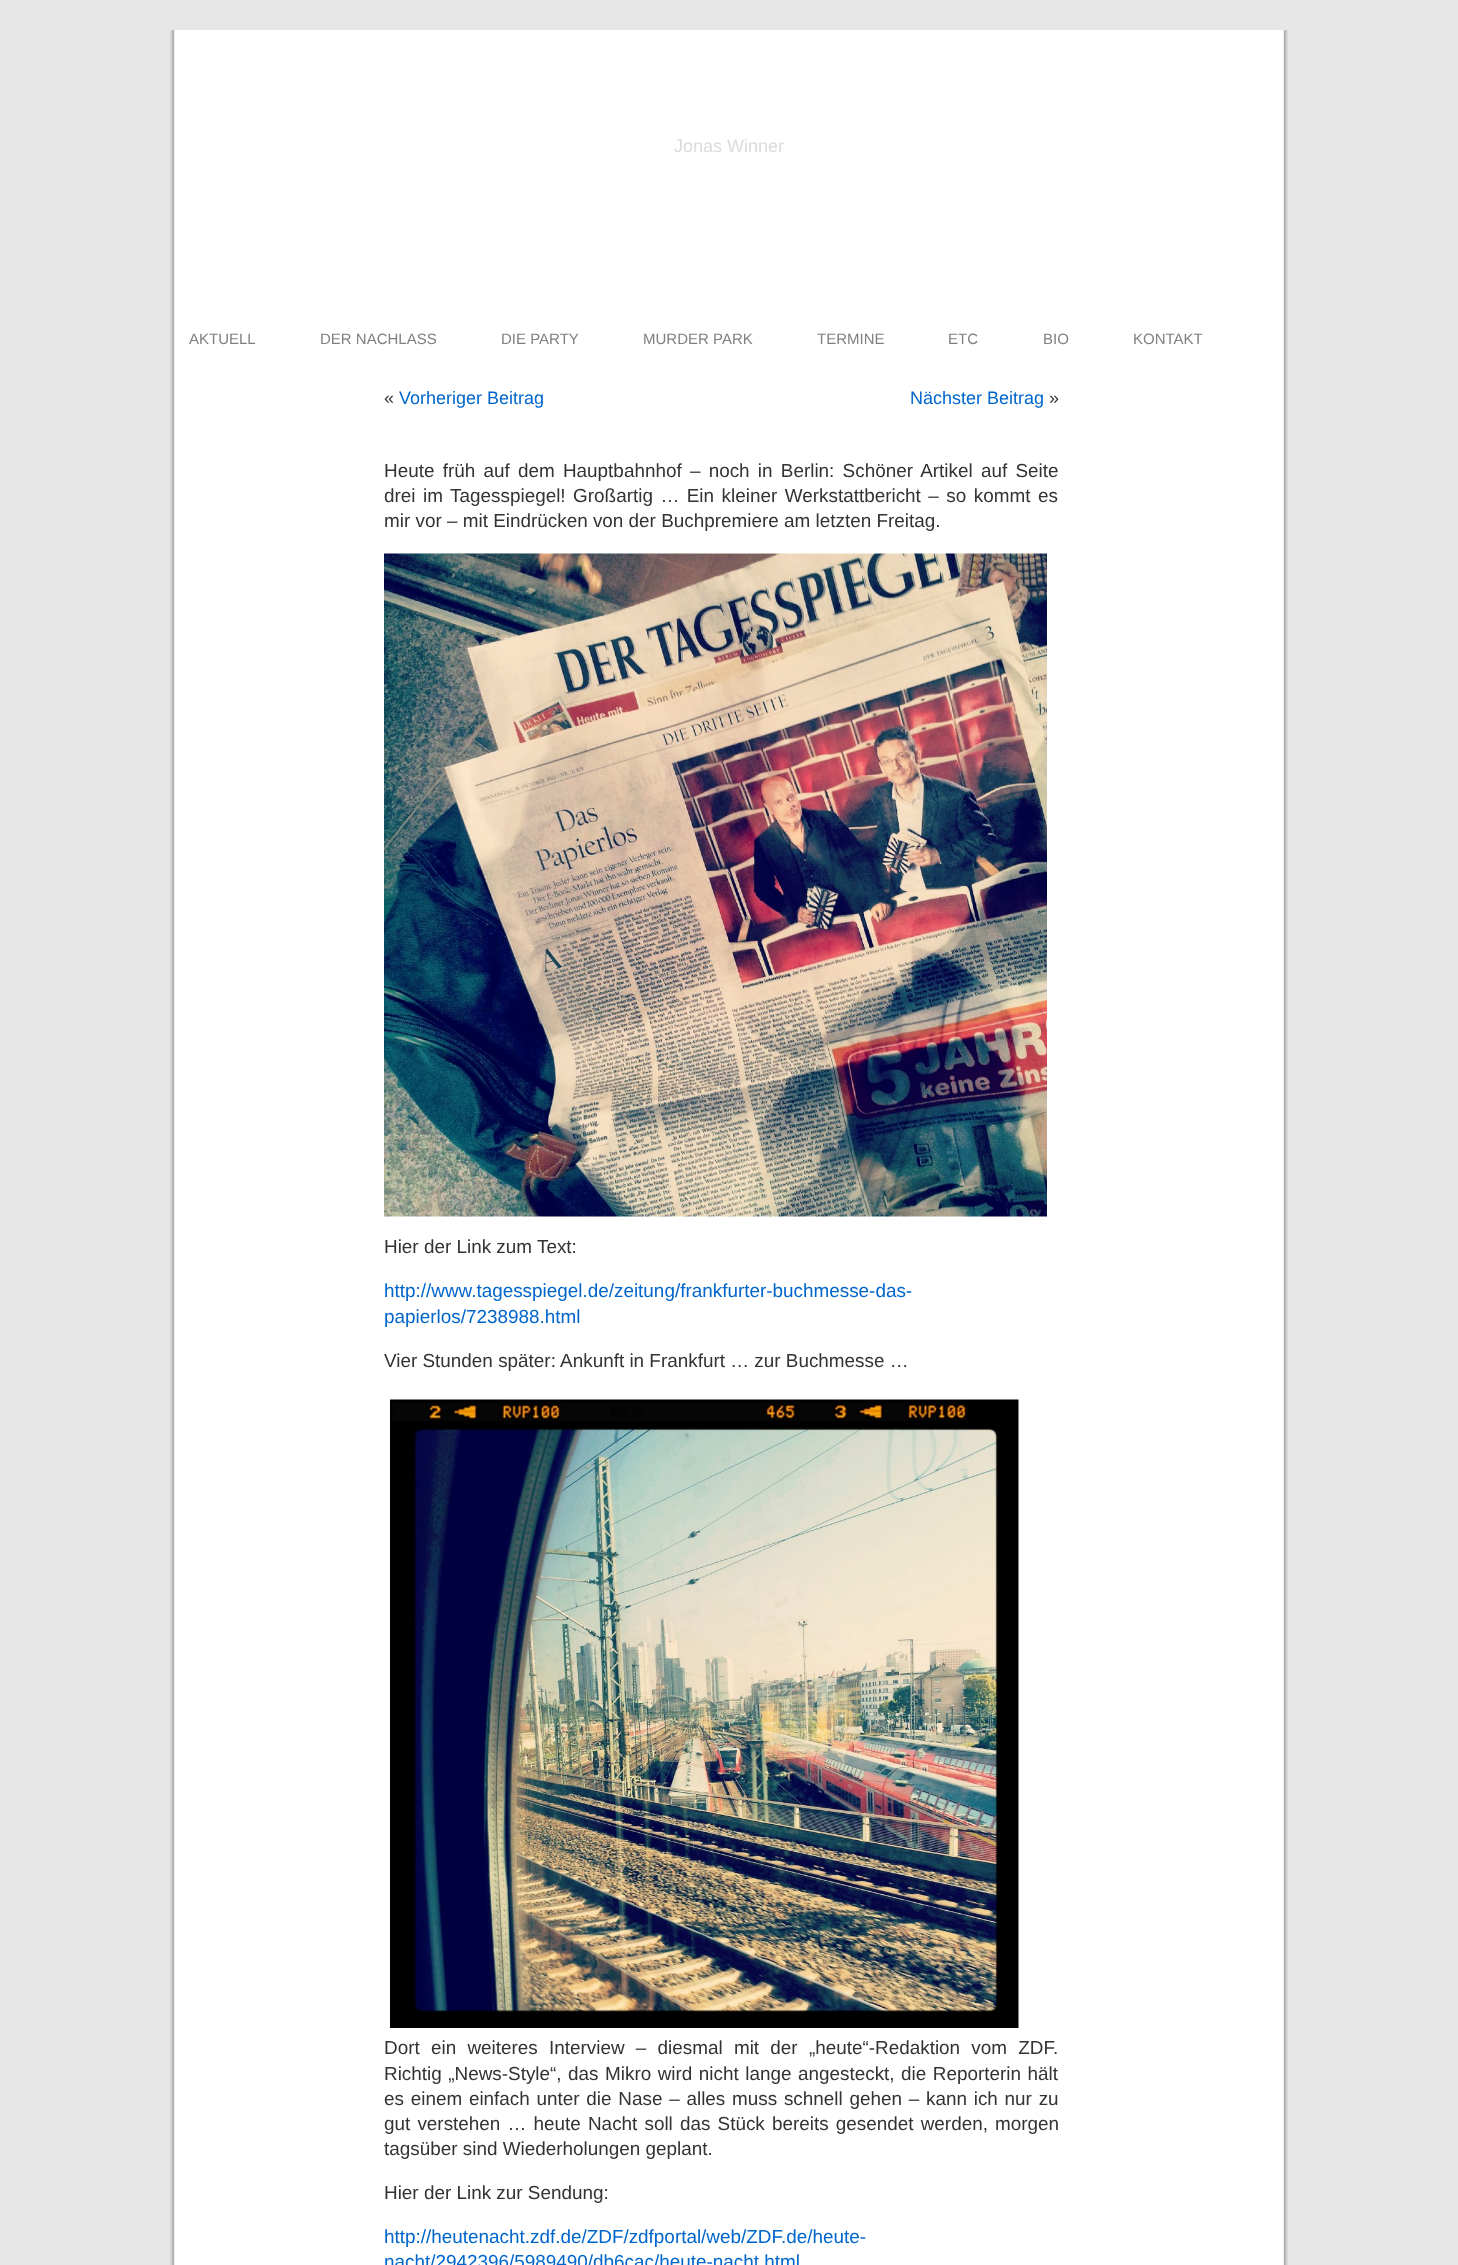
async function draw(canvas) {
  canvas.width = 1458;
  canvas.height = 2265;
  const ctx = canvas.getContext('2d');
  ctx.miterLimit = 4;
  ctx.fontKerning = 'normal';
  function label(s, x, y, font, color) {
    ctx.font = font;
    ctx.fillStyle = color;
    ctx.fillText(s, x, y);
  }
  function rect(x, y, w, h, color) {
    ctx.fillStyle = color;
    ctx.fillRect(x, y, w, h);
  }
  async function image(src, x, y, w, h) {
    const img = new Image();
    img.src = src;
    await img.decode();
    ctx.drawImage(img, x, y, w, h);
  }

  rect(0, 0, 1458, 2265, '#e7e7e7');
  await image('assets/img1.png', 169, 30, 1119, 2235);
  label('Jonas Winner', 674, 152, '18px Liberation Sans', '#dbdbdb');
  label('AKTUELL', 189, 344, '15px Liberation Sans', '#808080');
  label('DER NACHLASS', 320, 344, '15px Liberation Sans', '#808080');
  label('DIE PARTY', 501, 344, '15px Liberation Sans', '#808080');
  label('MURDER PARK', 643, 344, '15px Liberation Sans', '#808080');
  label('TERMINE', 817, 344, '15px Liberation Sans', '#808080');
  label('ETC', 948, 344, '15px Liberation Sans', '#808080');
  label('BIO', 1043, 344, '15px Liberation Sans', '#808080');
  label('KONTAKT', 1133, 344, '15px Liberation Sans', '#808080');
  label('«', 384, 404, '18px Liberation Sans', '#333');
  label('Vorheriger Beitrag', 399, 404, '18px Liberation Sans', '#06c');
  label('Nächster Beitrag', 910, 404, '18px Liberation Sans', '#06c');
  label('»', 1049, 404, '18px Liberation Sans', '#333');
  ctx.wordSpacing = '3px';
  label('Heute früh auf dem Hauptbahnhof – noch in Berlin: Schöner Artikel auf Seite', 384, 477, '18.9px Liberation Sans', '#333');
  ctx.wordSpacing = '2.25px';
  label('drei im Tagesspiegel! Großartig … Ein kleiner Werkstattbericht – so kommt es', 384, 502, '18.9px Liberation Sans', '#333');
  ctx.wordSpacing = '0px';
  label('mir vor – mit Eindrücken von der Buchpremiere am letzten Freitag.', 384, 527, '18.9px Liberation Sans', '#333');
  await image('assets/img2.png', 384, 553, 663, 664);
  label('Hier der Link zum Text:', 384, 1253, '18.9px Liberation Sans', '#333');
  label('http://www.tagesspiegel.de/zeitung/frankfurter-buchmesse-das-', 384, 1297, '18.9px Liberation Sans', '#06c');
  label('papierlos/7238988.html', 384, 1323, '18.9px Liberation Sans', '#06c');
  label('Vier Stunden später: Ankunft in Frankfurt … zur Buchmesse …', 384, 1367, '18.9px Liberation Sans', '#333');
  await image('assets/img3.png', 390, 1399, 629, 629);
  ctx.wordSpacing = '6px';
  label('Dort ein weiteres Interview – diesmal mit der „heute“-Redaktion vom ZDF.', 384, 2054, '18.9px Liberation Sans', '#333');
  ctx.wordSpacing = '1.25px';
  label('Richtig „News-Style“, das Mikro wird nicht lange angesteckt, die Reporterin hält', 384, 2080, '18.9px Liberation Sans', '#333');
  ctx.wordSpacing = '1.5px';
  label('es einem einfach unter die Nase – alles muss schnell gehen – kann ich nur zu', 384, 2105, '18.9px Liberation Sans', '#333');
  ctx.wordSpacing = '1.9px';
  label('gut verstehen … heute Nacht soll das Stück bereits gesendet werden, morgen', 384, 2130, '18.9px Liberation Sans', '#333');
  ctx.wordSpacing = '0px';
  label('tagsüber sind Wiederholungen geplant.', 384, 2155, '18.9px Liberation Sans', '#333');
  label('Hier der Link zur Sendung:', 384, 2199, '18.9px Liberation Sans', '#333');
  label('http://heutenacht.zdf.de/ZDF/zdfportal/web/ZDF.de/heute-', 384, 2243, '18.9px Liberation Sans', '#06c');
  label('nacht/2942396/5989490/db6cac/heute-nacht.html', 384, 2268, '18.9px Liberation Sans', '#06c');
}

draw(document.querySelector('canvas'));
